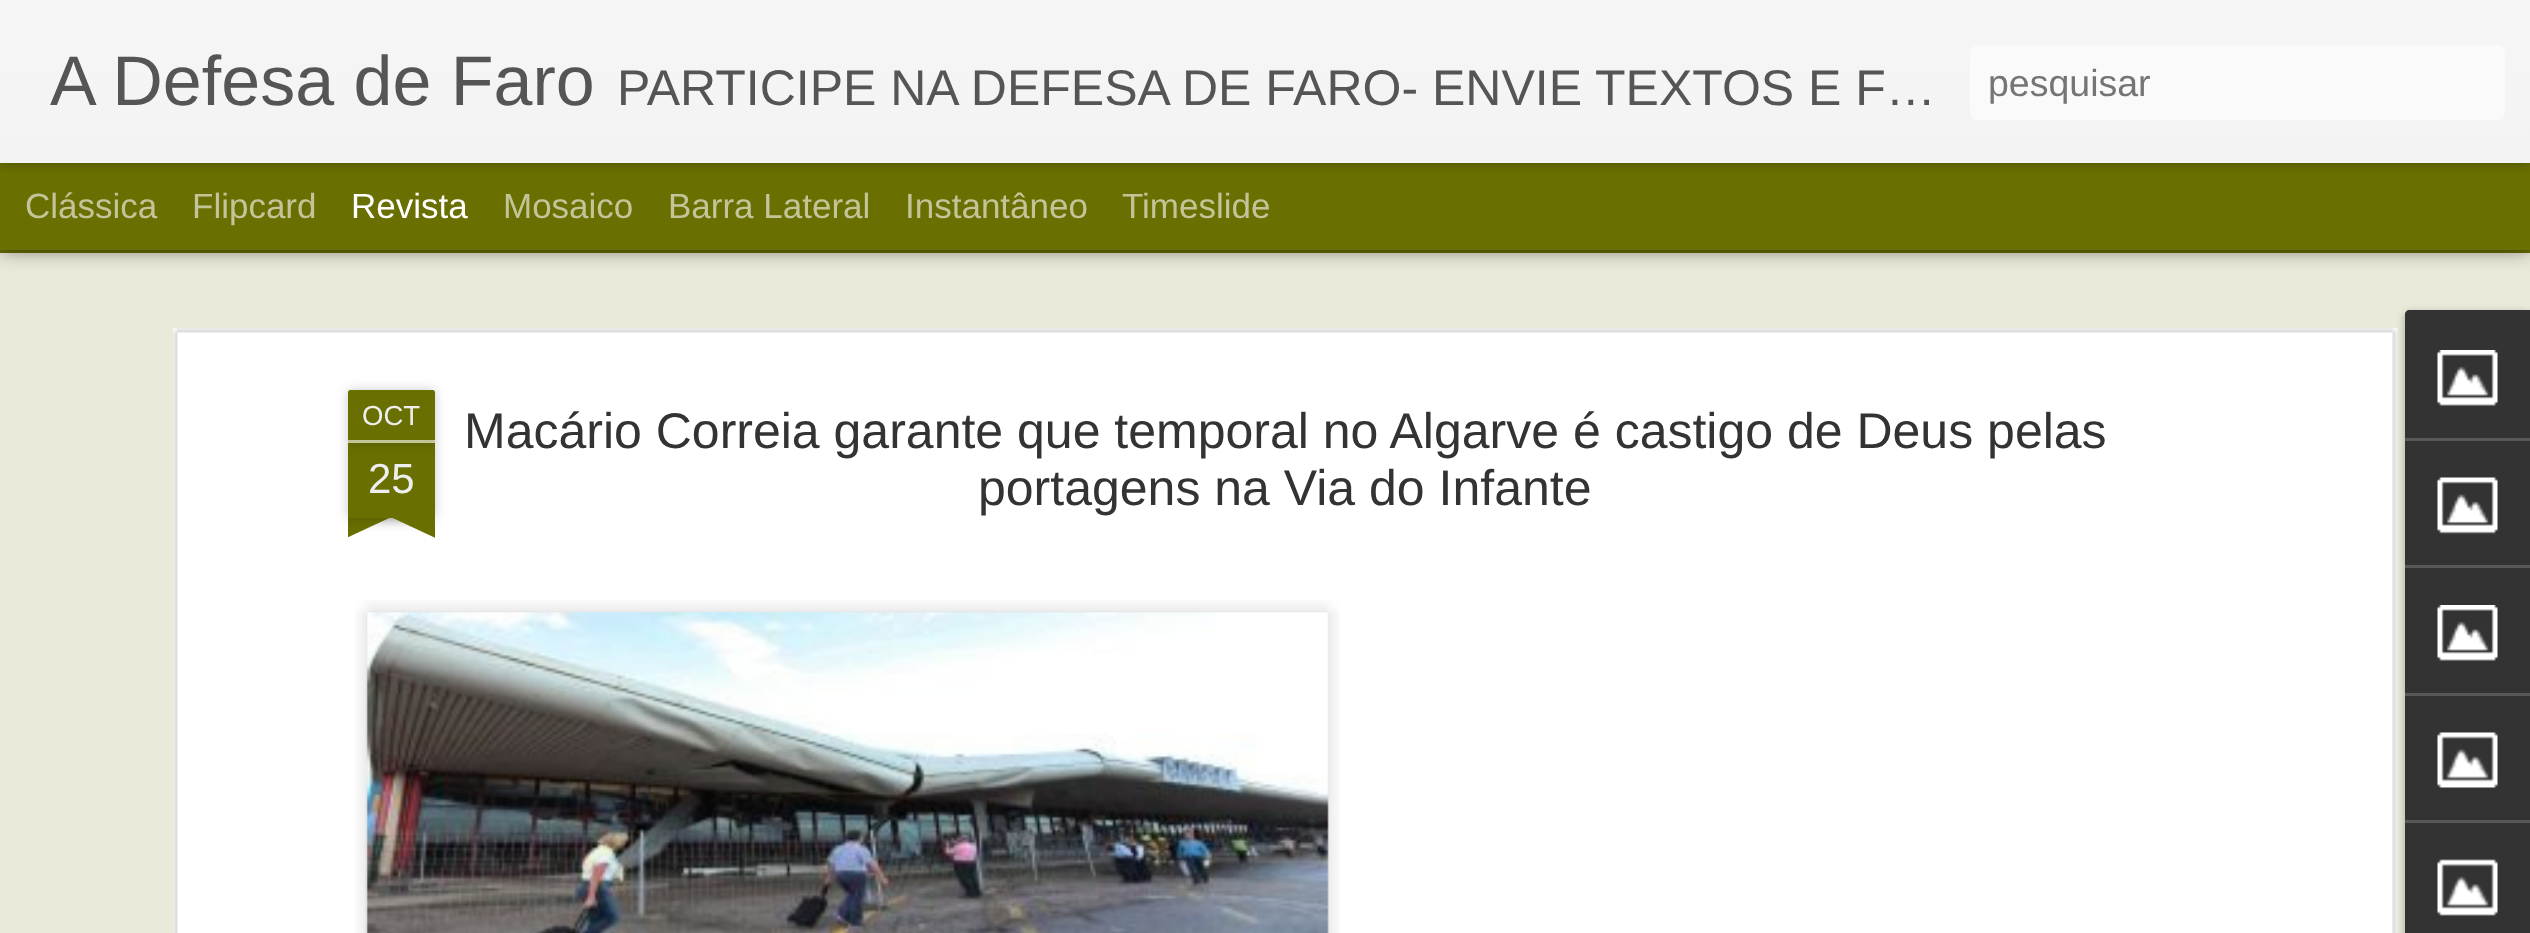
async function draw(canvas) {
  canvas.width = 2530;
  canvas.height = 933;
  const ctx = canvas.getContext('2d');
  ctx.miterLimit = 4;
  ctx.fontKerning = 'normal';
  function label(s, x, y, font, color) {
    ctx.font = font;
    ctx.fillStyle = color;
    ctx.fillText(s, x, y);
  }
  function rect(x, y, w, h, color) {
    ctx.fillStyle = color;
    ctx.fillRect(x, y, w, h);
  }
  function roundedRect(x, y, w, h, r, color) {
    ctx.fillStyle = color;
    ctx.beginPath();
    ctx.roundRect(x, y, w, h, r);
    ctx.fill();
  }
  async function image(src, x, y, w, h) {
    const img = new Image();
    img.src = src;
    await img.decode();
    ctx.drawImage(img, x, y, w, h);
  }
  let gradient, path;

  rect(0, 0, 2530, 933, '#696f00');
  rect(0, 253, 2530, 680, '#e9ead9');
  ctx.fillStyle = '#00000080';
  ctx.filter = 'blur(10px)';
  ctx.beginPath();
  ctx.rect(0, 163, 2530, 87);
  ctx.fill();
  ctx.filter = 'none';
  rect(0, 163, 2530, 87, '#696f00');
  ctx.fillStyle = '#0000004d';
  ctx.filter = 'blur(6px)';
  ctx.beginPath();
  ctx.rect(0, 0, 2530, 163);
  ctx.fill();
  ctx.filter = 'none';
  gradient = ctx.createLinearGradient(0, 0, 0, 163);
  gradient.addColorStop(0, '#f6f6f6');
  gradient.addColorStop(1, '#f3f3f3');
  ctx.fillStyle = gradient;
  ctx.fillRect(0, 0, 2530, 163);
  label('A Defesa de Faro', 50, 105, '70px Liberation Sans', '#555');
  label('PARTICIPE NA DEFESA DE FARO- ENVIE TEXTOS E F…', 617, 105, '50px Liberation Sans', '#555');
  roundedRect(1970, 45, 535, 75, 8, '#fafafa');
  label('pesquisar', 1988, 96, '37.5px Liberation Sans', '#757575');
  label('Clássica', 25, 218, '35px Liberation Sans', '#c3c599');
  label('Flipcard', 192, 218, '35px Liberation Sans', '#c3c599');
  label('Revista', 351, 218, '35px Liberation Sans', '#fff');
  label('Mosaico', 503, 218, '35px Liberation Sans', '#c3c599');
  label('Barra Lateral', 668, 218, '35px Liberation Sans', '#c3c599');
  label('Instantâneo', 905, 218, '35px Liberation Sans', '#c3c599');
  label('Timeslide', 1122, 218, '35px Liberation Sans', '#c3c599');
  rect(173, 328, 2225, 605, '#fff');
  await image('assets/img1.png', 173, 328, 2225, 605);
  ctx.fillStyle = '#00000033';
  ctx.filter = 'blur(6px)';
  ctx.beginPath();
  ctx.rect(348, 443, 87, 75);
  ctx.fill();
  ctx.filter = 'none';
  rect(348, 443, 87, 75, '#696f00');
  ctx.fillStyle = '#00000033';
  ctx.filter = 'blur(6px)';
  ctx.beginPath();
  ctx.roundRect(348, 390, 87, 53, 2.5);
  ctx.fill();
  ctx.filter = 'none';
  ctx.fillStyle = '#696f00';
  ctx.beginPath();
  ctx.roundRect(348, 390, 87, 53, [2.5, 2.5, 0, 0]);
  ctx.fill();
  rect(348, 440, 87, 3, '#c3c599');
  label('OCT', 362, 425, '27.5px Liberation Sans', '#eee');
  label('25', 368, 493, '42px Liberation Sans', '#eee');
  ctx.save();
  ctx.beginPath();
  ctx.rect(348, 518, 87, 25);
  ctx.clip();
  ctx.fillStyle = '#00000033';
  ctx.filter = 'blur(6.5px)';
  ctx.beginPath();
  ctx.rect(325, 493, 125, 25);
  ctx.fill();
  ctx.filter = 'none';
  ctx.restore();
  ctx.save();
  ctx.beginPath();
  ctx.rect(348, 518, 87, 25);
  ctx.clip();
  ctx.fillStyle = '#696f00';
  path = new Path2D('M326 520L439 467L449 490L336 543Z');
  ctx.fill(path);
  ctx.restore();
  ctx.save();
  ctx.beginPath();
  ctx.rect(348, 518, 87, 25);
  ctx.clip();
  ctx.fillStyle = '#00000033';
  ctx.filter = 'blur(6.5px)';
  ctx.beginPath();
  ctx.rect(333, 493, 125, 25);
  ctx.fill();
  ctx.filter = 'none';
  ctx.restore();
  ctx.save();
  ctx.beginPath();
  ctx.rect(348, 518, 87, 25);
  ctx.clip();
  ctx.fillStyle = '#696f00';
  path = new Path2D('M344 467L457 520L446 543L333 490Z');
  ctx.fill(path);
  ctx.restore();
  label('Macário Correia garante que temporal no Algarve é castigo de Deus pelas', 464, 448, '50px Liberation Sans', '#333');
  label('portagens na Via do Infante', 978, 505, '50px Liberation Sans', '#333');
  await image('assets/img2.png', 355, 600, 985, 333);
  await image('assets/img3.png', 365, 612, 964, 321);
  ctx.fillStyle = '#0000004d';
  ctx.filter = 'blur(4px)';
  ctx.beginPath();
  ctx.roundRect(2405, 313, 125, 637, 5);
  ctx.fill();
  ctx.filter = 'none';
  ctx.fillStyle = '#333';
  path = new Path2D('M2410 310H2530V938H2410C2407 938 2405 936 2405 933V315C2405 312 2407 310 2410 310Z');
  ctx.fill(path);
  ctx.beginPath();
  ctx.roundRect(2405, 310, 125, 128, [5, 0, 0, 0]);
  ctx.fill();
  await image('assets/img4.png', 2437, 350, 61, 56);
  rect(2405, 438, 125, 3, '#585858');
  await image('assets/img5.png', 2437, 477, 61, 57);
  rect(2405, 565, 125, 3, '#585858');
  await image('assets/img4.png', 2437, 605, 61, 56);
  rect(2405, 693, 125, 3, '#585858');
  await image('assets/img6.png', 2437, 732, 61, 56);
  rect(2405, 820, 125, 3, '#585858');
  await image('assets/img7.png', 2437, 859, 61, 57);
}

draw(document.querySelector('canvas'));
